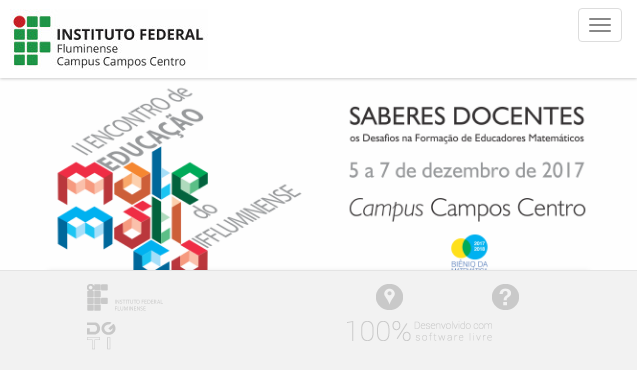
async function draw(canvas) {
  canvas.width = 637;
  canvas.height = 370;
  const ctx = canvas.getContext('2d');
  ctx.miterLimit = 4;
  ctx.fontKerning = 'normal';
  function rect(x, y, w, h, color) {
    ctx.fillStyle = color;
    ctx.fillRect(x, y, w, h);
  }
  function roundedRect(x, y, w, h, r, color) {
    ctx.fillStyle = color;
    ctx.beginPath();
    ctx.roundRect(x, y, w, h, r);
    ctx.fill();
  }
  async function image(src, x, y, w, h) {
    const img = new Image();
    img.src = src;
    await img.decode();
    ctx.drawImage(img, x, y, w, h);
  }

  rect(0, 0, 637, 370, '#fff');
  await image('assets/img2.png', 0, 78, 637, 192);
  ctx.fillStyle = '#00000033';
  ctx.filter = 'blur(1.5px)';
  ctx.beginPath();
  ctx.rect(0, 1, 637, 78);
  ctx.fill();
  ctx.filter = 'none';
  rect(0, 0, 637, 78, '#fff');
  await image('assets/img1.png', 10, 9, 198, 61);
  ctx.beginPath();
  ctx.roundRect(578.5, 8.5, 43, 33, 3.5);
  ctx.strokeStyle = '#ddd';
  ctx.stroke();
  roundedRect(589, 18, 22, 2, 1, '#888');
  roundedRect(589, 24, 22, 2, 1, '#888');
  roundedRect(589, 30, 22, 2, 1, '#888');
  ctx.fillStyle = '#0000001a';
  ctx.filter = 'blur(2.5px)';
  ctx.beginPath();
  ctx.roundRect(47, 271, 543, 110, 3);
  ctx.fill();
  ctx.filter = 'none';
  rect(0, 271, 637, 99, '#f2f2f2');
  rect(0, 270, 637, 1, '#e4e4e4');
  await image('assets/img3.png', 87, 284, 76, 27);
  await image('assets/img4.png', 376, 284, 27, 26);
  await image('assets/img5.png', 492, 284, 27, 26);
  await image('assets/img6.png', 87, 322, 29, 28);
  await image('assets/img7.png', 347, 321, 145, 20);
}

draw(document.querySelector('canvas'));
